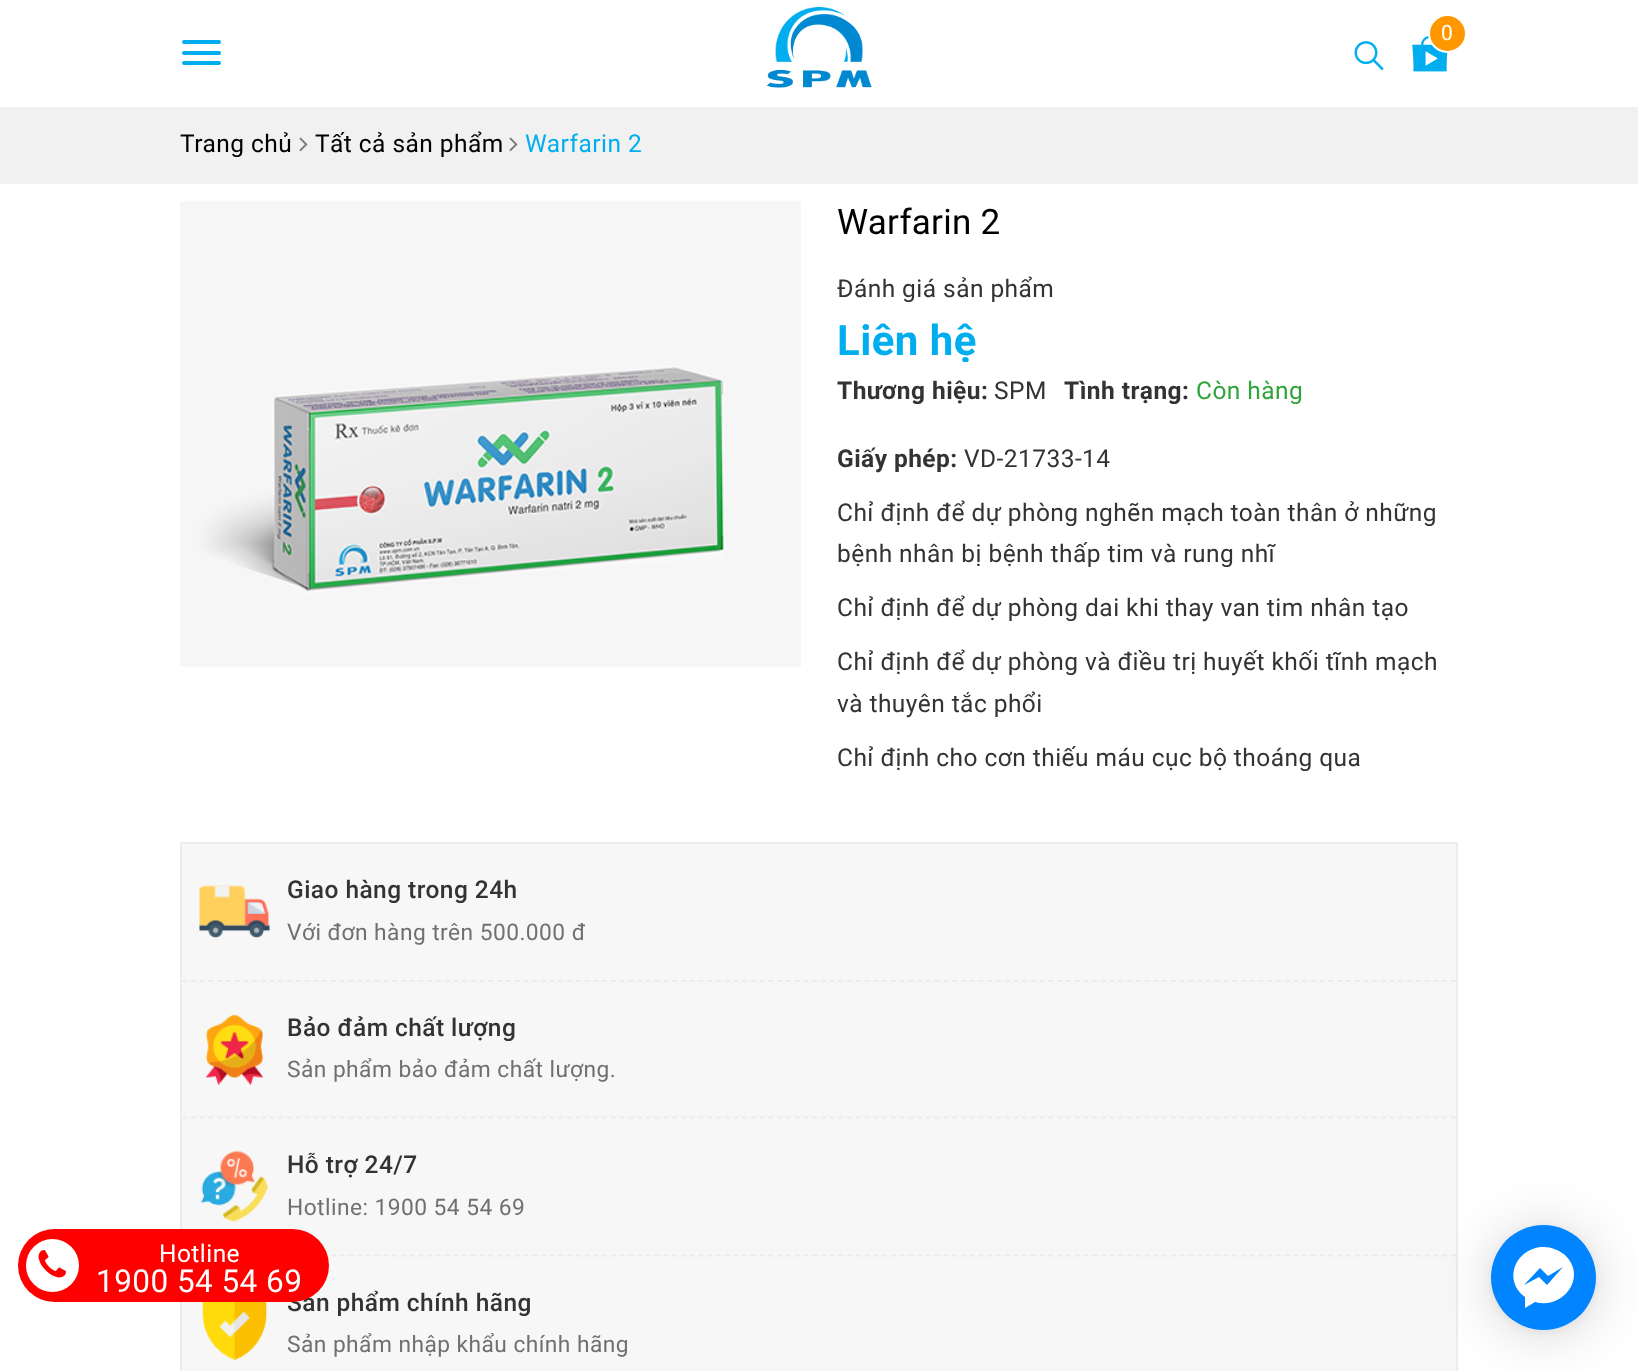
async function draw(canvas) {
  canvas.width = 1638;
  canvas.height = 1371;
  const ctx = canvas.getContext('2d');
  ctx.miterLimit = 4;
  ctx.fontKerning = 'normal';
  function label(s, x, y, font, color) {
    ctx.font = font;
    ctx.fillStyle = color;
    ctx.fillText(s, x, y);
  }
  function rect(x, y, w, h, color) {
    ctx.fillStyle = color;
    ctx.fillRect(x, y, w, h);
  }
  function roundedRect(x, y, w, h, r, color) {
    ctx.fillStyle = color;
    ctx.beginPath();
    ctx.roundRect(x, y, w, h, r);
    ctx.fill();
  }
  async function image(src, x, y, w, h) {
    const img = new Image();
    img.src = src;
    await img.decode();
    ctx.drawImage(img, x, y, w, h);
  }
  let path;

  rect(0, 0, 1638, 1371, '#fff');
  await image('assets/img1.png', 766, 7, 106, 81);
  await image('assets/img2.png', 1412, 35, 36, 37);
  ctx.fillStyle = '#ff9800';
  ctx.beginPath();
  ctx.arc(1447.5, 33.5, 18.5, 0, 2 * Math.PI);
  ctx.fill();
  ctx.strokeStyle = '#fff';
  ctx.lineWidth = 2;
  ctx.stroke();
  ctx.letterSpacing = '0.45px';
  label('0', 1441, 40, '21px Roboto', '#fff');
  await image('assets/img3.png', 1354, 41, 30, 29);
  roundedRect(182, 40, 39, 4, 2, '#00aeef');
  roundedRect(182, 51, 39, 4, 2, '#00aeef');
  roundedRect(182, 61, 39, 4, 2, '#00aeef');
  rect(0, 107, 1638, 77, '#f1f1f1');
  label('Trang chủ', 180, 152, '24.5px Roboto', '#000');
  await image('assets/img4.png', 299, 137, 9, 15);
  label('Tất cả sản phẩm', 315, 152, '24.5px Roboto', '#000');
  await image('assets/img4.png', 509, 137, 9, 15);
  label('Warfarin 2', 525, 152, '24.5px Roboto', '#00aeef');
  ctx.fillStyle = '#f7f7f7';
  ctx.beginPath();
  ctx.rect(181, 843, 1276, 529);
  ctx.fill();
  ctx.strokeStyle = '#ececec';
  ctx.stroke();
  path = new Path2D('M182 1255.5H1456');
  ctx.lineWidth = 1.8;
  ctx.setLineDash([5.25, 3.5]);
  ctx.stroke(path);
  label('Sản phẩm chính hãng', 287, 1311, '500 24.5px Roboto', '#333');
  roundedRect(18, 1229, 311, 73, 36.5, '#f00');
  ctx.fillStyle = '#fff';
  ctx.beginPath();
  ctx.arc(52.5, 1265.5, 26.5, 0, 2 * Math.PI);
  ctx.fill();
  await image('assets/img5.png', 38, 1250, 28, 28);
  label('Hotline', 159, 1262, '24.5px Roboto', '#fff');
  label('1900 54 54 69', 96, 1292, '31.5px Roboto', '#fff');
  await image('assets/img6.png', 180, 201, 621, 466);
  ctx.letterSpacing = '0.25px';
  label('Warfarin 2', 837, 234, '35px Roboto', '#000');
  ctx.letterSpacing = '0.45px';
  label('Đánh giá sản phẩm', 837, 297, '24.5px Roboto', '#333');
  ctx.save();
  ctx.beginPath();
  ctx.rect(837, 320, 140, 42);
  ctx.clip();
  label('Liên hệ', 837, 355, 'bold 42px Roboto', '#00aeef');
  ctx.restore();
  label('Thương hiệu:', 837, 399, 'bold 24.5px Roboto', '#333');
  label('SPM', 994, 399, '24.5px Roboto', '#333');
  label('Tình trạng:', 1064, 399, 'bold 24.5px Roboto', '#333');
  label('Còn hàng', 1196, 399, '24.5px Roboto', '#30a43b');
  label('Giấy phép:', 837, 467, 'bold 24.5px Roboto', '#333');
  label('VD-21733-14', 964, 467, '24.5px Roboto', '#333');
  label('Chỉ định để dự phòng nghẽn mạch toàn thân ở những', 837, 521, '24.5px Roboto', '#333');
  label('bệnh nhân bị bệnh thấp tim và rung nhĩ', 837, 562, '24.5px Roboto', '#333');
  label('Chỉ định để dự phòng dai khi thay van tim nhân tạo', 837, 616, '24.5px Roboto', '#333');
  label('Chỉ định để dự phòng và điều trị huyết khối tĩnh mạch', 837, 670, '24.5px Roboto', '#333');
  label('và thuyên tắc phổi', 837, 712, '24.5px Roboto', '#333');
  label('Chỉ định cho cơn thiếu máu cục bộ thoáng qua', 837, 766, '24.5px Roboto', '#333');
  path = new Path2D('M182 981H1456');
  ctx.stroke(path);
  await image('assets/img7.png', 199, 885, 71, 53);
  label('Giao hàng trong 24h', 287, 898, '500 24.5px Roboto', '#333');
  label('Với đơn hàng trên 500.000 đ', 287, 940, '22.75px Roboto', '#707070');
  path = new Path2D('M182 1117.5H1456');
  ctx.stroke(path);
  await image('assets/img8.png', 206, 1015, 57, 70);
  label('Bảo đảm chất lượng', 287, 1036, '500 24.5px Roboto', '#333');
  label('Sản phẩm bảo đảm chất lượng.', 287, 1077, '22.75px Roboto', '#707070');
  await image('assets/img9.png', 200, 1151, 69, 71);
  label('Hỗ trợ 24/7', 287, 1173, '500 24.5px Roboto', '#333');
  label('Hotline: 1900 54 54 69', 287, 1215, '22.75px Roboto', '#707070');
  await image('assets/img10.png', 202, 1302, 66, 58);
  label('Sản phẩm nhập khẩu chính hãng', 287, 1352, '22.75px Roboto', '#707070');
  ctx.fillStyle = '#00000029';
  ctx.filter = 'blur(28px)';
  ctx.beginPath();
  ctx.roundRect(1491, 1229, 105, 105, 52.5);
  ctx.fill();
  ctx.filter = 'none';
  ctx.fillStyle = '#0000000f';
  ctx.filter = 'blur(5px)';
  ctx.beginPath();
  ctx.roundRect(1491, 1227, 105, 105, 52.5);
  ctx.fill();
  ctx.filter = 'none';
  ctx.fillStyle = '#0084ff';
  ctx.beginPath();
  ctx.arc(1543.5, 1277.5, 52.5, 0, 2 * Math.PI);
  ctx.fill();
  ctx.save();
  ctx.beginPath();
  ctx.roundRect(1491, 1225, 105, 105, 52.5);
  ctx.clip();
  rect(1502, 1236, 84, 84, '#0084ff');
  ctx.restore();
  ctx.fillStyle = '#fff';
  path = new Path2D('M1544 1247C1516 1247 1502 1280 1525 1297V1308L1535 1302C1563 1310 1588 1277 1565 1255C1559 1250 1551 1247 1544 1247ZM1547 1285L1539 1277L1524 1285L1540 1268L1548 1276L1563 1267Z');
  ctx.fill(path);
}

draw(document.querySelector('canvas'));
